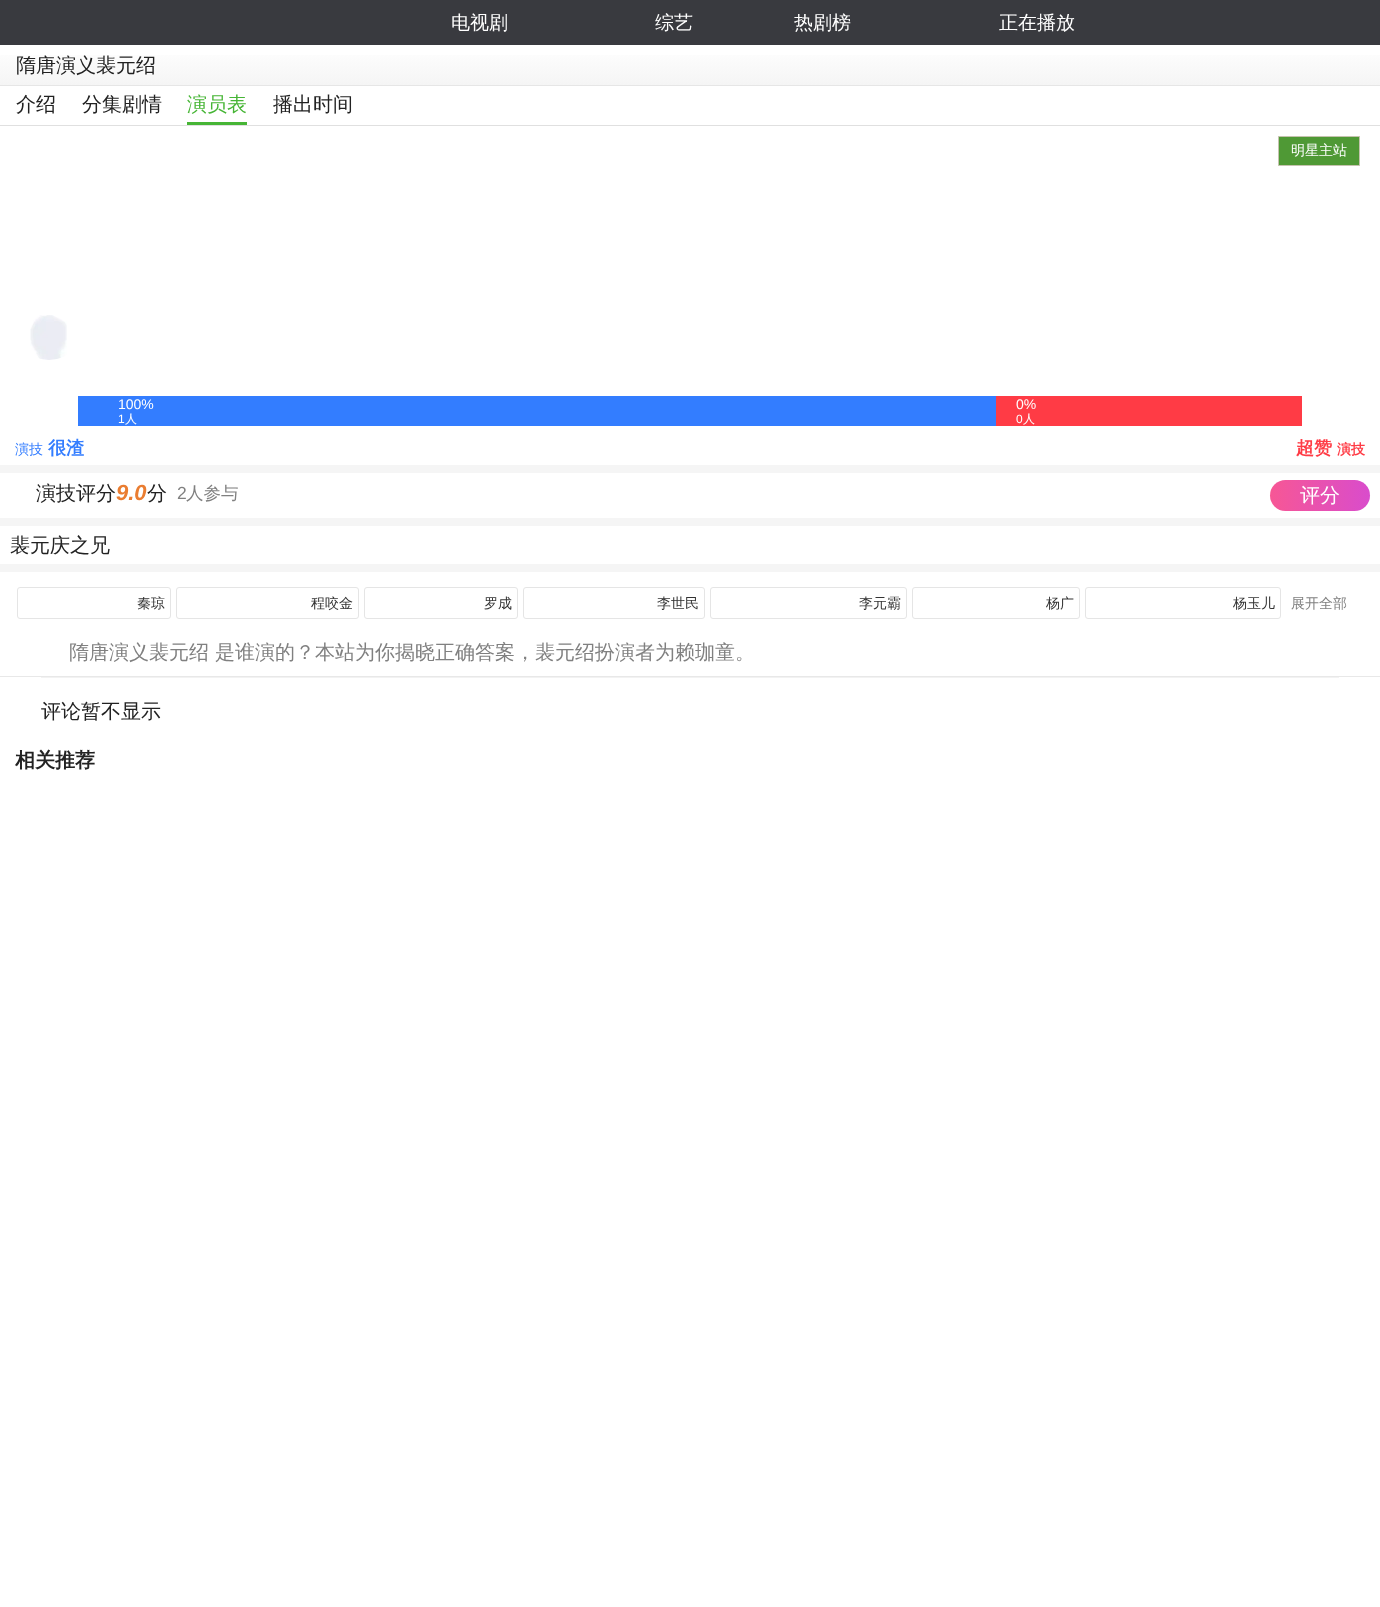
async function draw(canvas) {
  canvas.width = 1380;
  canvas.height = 1607;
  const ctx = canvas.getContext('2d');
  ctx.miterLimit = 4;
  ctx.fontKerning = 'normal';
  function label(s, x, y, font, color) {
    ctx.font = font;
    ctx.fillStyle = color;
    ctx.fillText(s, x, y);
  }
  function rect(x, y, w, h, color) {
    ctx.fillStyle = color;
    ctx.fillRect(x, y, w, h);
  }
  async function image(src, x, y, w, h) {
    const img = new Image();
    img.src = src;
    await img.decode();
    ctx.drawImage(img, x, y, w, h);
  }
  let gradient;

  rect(0, 0, 1380, 1607, '#fff');
  rect(0, 0, 1380, 45, '#393a3f');
  label('电视剧', 451, 29, '500 19px WenQuanYi Zen Hei', '#fff');
  label('综艺', 655, 29, '500 19px WenQuanYi Zen Hei', '#fff');
  label('热剧榜', 794, 29, '500 19px WenQuanYi Zen Hei', '#fff');
  label('正在播放', 999, 29, '500 19px WenQuanYi Zen Hei', '#fff');
  gradient = ctx.createLinearGradient(0, 45, 0, 85);
  gradient.addColorStop(0, '#fff');
  gradient.addColorStop(1, '#f5f5f5');
  ctx.fillStyle = gradient;
  ctx.fillRect(0, 55, 1380, 30);
  label('隋唐演义裴元绍', 16, 72, '500 20px WenQuanYi Zen Hei', '#222');
  rect(0, 125, 1380, 1, '#e0e0e0');
  rect(0, 85, 1380, 1, '#e6e6e6');
  label('介绍', 16, 111, '500 20px WenQuanYi Zen Hei', '#222');
  label('分集剧情', 82, 111, '500 20px WenQuanYi Zen Hei', '#222');
  rect(187, 122, 60, 3, '#46b535');
  label('演员表', 187, 111, '500 20px WenQuanYi Zen Hei', '#46b535');
  label('播出时间', 273, 111, '500 20px WenQuanYi Zen Hei', '#222');
  ctx.fillStyle = '#4f9935';
  ctx.beginPath();
  ctx.rect(1278.5, 136.5, 81, 29);
  ctx.fill();
  ctx.strokeStyle = '#c5c3ae';
  ctx.stroke();
  label('明星主站', 1291, 155, '500 14px WenQuanYi Zen Hei', '#fff');
  await image('assets/img1.png', 30, 315, 37, 45);
  rect(78, 396, 918, 30, '#337dff');
  label('100%', 118, 409, '14px Liberation Sans', '#fff');
  label('1', 118, 423, '12px Liberation Sans', '#fff');
  label('人', 125, 423, '500 12px WenQuanYi Zen Hei', '#fff');
  rect(996, 396, 306, 30, '#ff3b45');
  label('0%', 1016, 409, '14px Liberation Sans', '#fff');
  label('0', 1016, 423, '12px Liberation Sans', '#fff');
  label('人', 1023, 423, '500 12px WenQuanYi Zen Hei', '#fff');
  label('演技', 15, 454, '500 14px WenQuanYi Zen Hei', '#337dff');
  label('很渣', 48, 454, 'bold 18px WenQuanYi Zen Hei', '#337dff');
  label('超赞', 1296, 454, 'bold 18px WenQuanYi Zen Hei', '#ff3b45');
  label('演技', 1337, 454, 'bold 14px WenQuanYi Zen Hei', '#ff3b45');
  rect(0, 465, 1380, 8, '#f5f5f5');
  label('演技评分', 36, 500, '500 20px WenQuanYi Zen Hei', '#222');
  label('9.0', 116, 500, 'italic bold 22px Liberation Sans', '#ea7d31');
  label('分', 147, 500, '500 20px WenQuanYi Zen Hei', '#222');
  label('2', 177, 499, '17.5px Liberation Sans', '#808080');
  label('人参与', 186, 499, '500 17.5px WenQuanYi Zen Hei', '#808080');
  gradient = ctx.createLinearGradient(1270, 496, 1370, 496);
  gradient.addColorStop(0, '#f75795');
  gradient.addColorStop(1, '#d94ccc');
  ctx.fillStyle = gradient;
  ctx.beginPath();
  ctx.roundRect(1270, 480, 100, 31, 15.5);
  ctx.fill();
  label('评分', 1300, 502, '500 20px WenQuanYi Zen Hei', '#fff');
  rect(0, 518, 1380, 8, '#f5f5f5');
  label('裴元庆之兄', 10, 552, '500 20px WenQuanYi Zen Hei', '#222');
  rect(0, 564, 1380, 8, '#f5f5f5');
  ctx.beginPath();
  ctx.roundRect(17.5, 587.5, 153, 31, 2.5);
  ctx.strokeStyle = '#e5e5e5';
  ctx.stroke();
  label('秦琼', 137, 608, '500 14px WenQuanYi Zen Hei', '#333');
  ctx.beginPath();
  ctx.roundRect(176.5, 587.5, 182, 31, 2.5);
  ctx.stroke();
  label('程咬金', 311, 608, '500 14px WenQuanYi Zen Hei', '#333');
  ctx.beginPath();
  ctx.roundRect(364.5, 587.5, 153, 31, 2.5);
  ctx.stroke();
  label('罗成', 484, 608, '500 14px WenQuanYi Zen Hei', '#333');
  ctx.beginPath();
  ctx.roundRect(523.5, 587.5, 181, 31, 2.5);
  ctx.stroke();
  label('李世民', 657, 608, '500 14px WenQuanYi Zen Hei', '#333');
  ctx.beginPath();
  ctx.roundRect(710.5, 587.5, 196, 31, 2.5);
  ctx.stroke();
  label('李元霸', 859, 608, '500 14px WenQuanYi Zen Hei', '#333');
  ctx.beginPath();
  ctx.roundRect(912.5, 587.5, 167, 31, 2.5);
  ctx.stroke();
  label('杨广', 1046, 608, '500 14px WenQuanYi Zen Hei', '#333');
  ctx.beginPath();
  ctx.roundRect(1085.5, 587.5, 195, 31, 2.5);
  ctx.stroke();
  label('杨玉儿', 1233, 608, '500 14px WenQuanYi Zen Hei', '#333');
  label('展开全部', 1291, 608, '500 14px WenQuanYi Zen Hei', '#808080');
  rect(0, 676, 1380, 1, '#e8e8e8');
  label('隋唐演义裴元绍', 69, 659, '500 20px WenQuanYi Zen Hei', '#808080');
  label('是谁演的？本站为你揭晓正确答案，裴元绍扮演者为赖珈童。', 215, 659, '500 20px WenQuanYi Zen Hei', '#808080');
  rect(41, 677, 1298, 1, '#f2f2f2');
  label('评论暂不显示', 41, 718, '500 20px WenQuanYi Zen Hei', '#222');
  label('相关推荐', 15, 767, 'bold 20px WenQuanYi Zen Hei', '#222');
}

draw(document.querySelector('canvas'));
